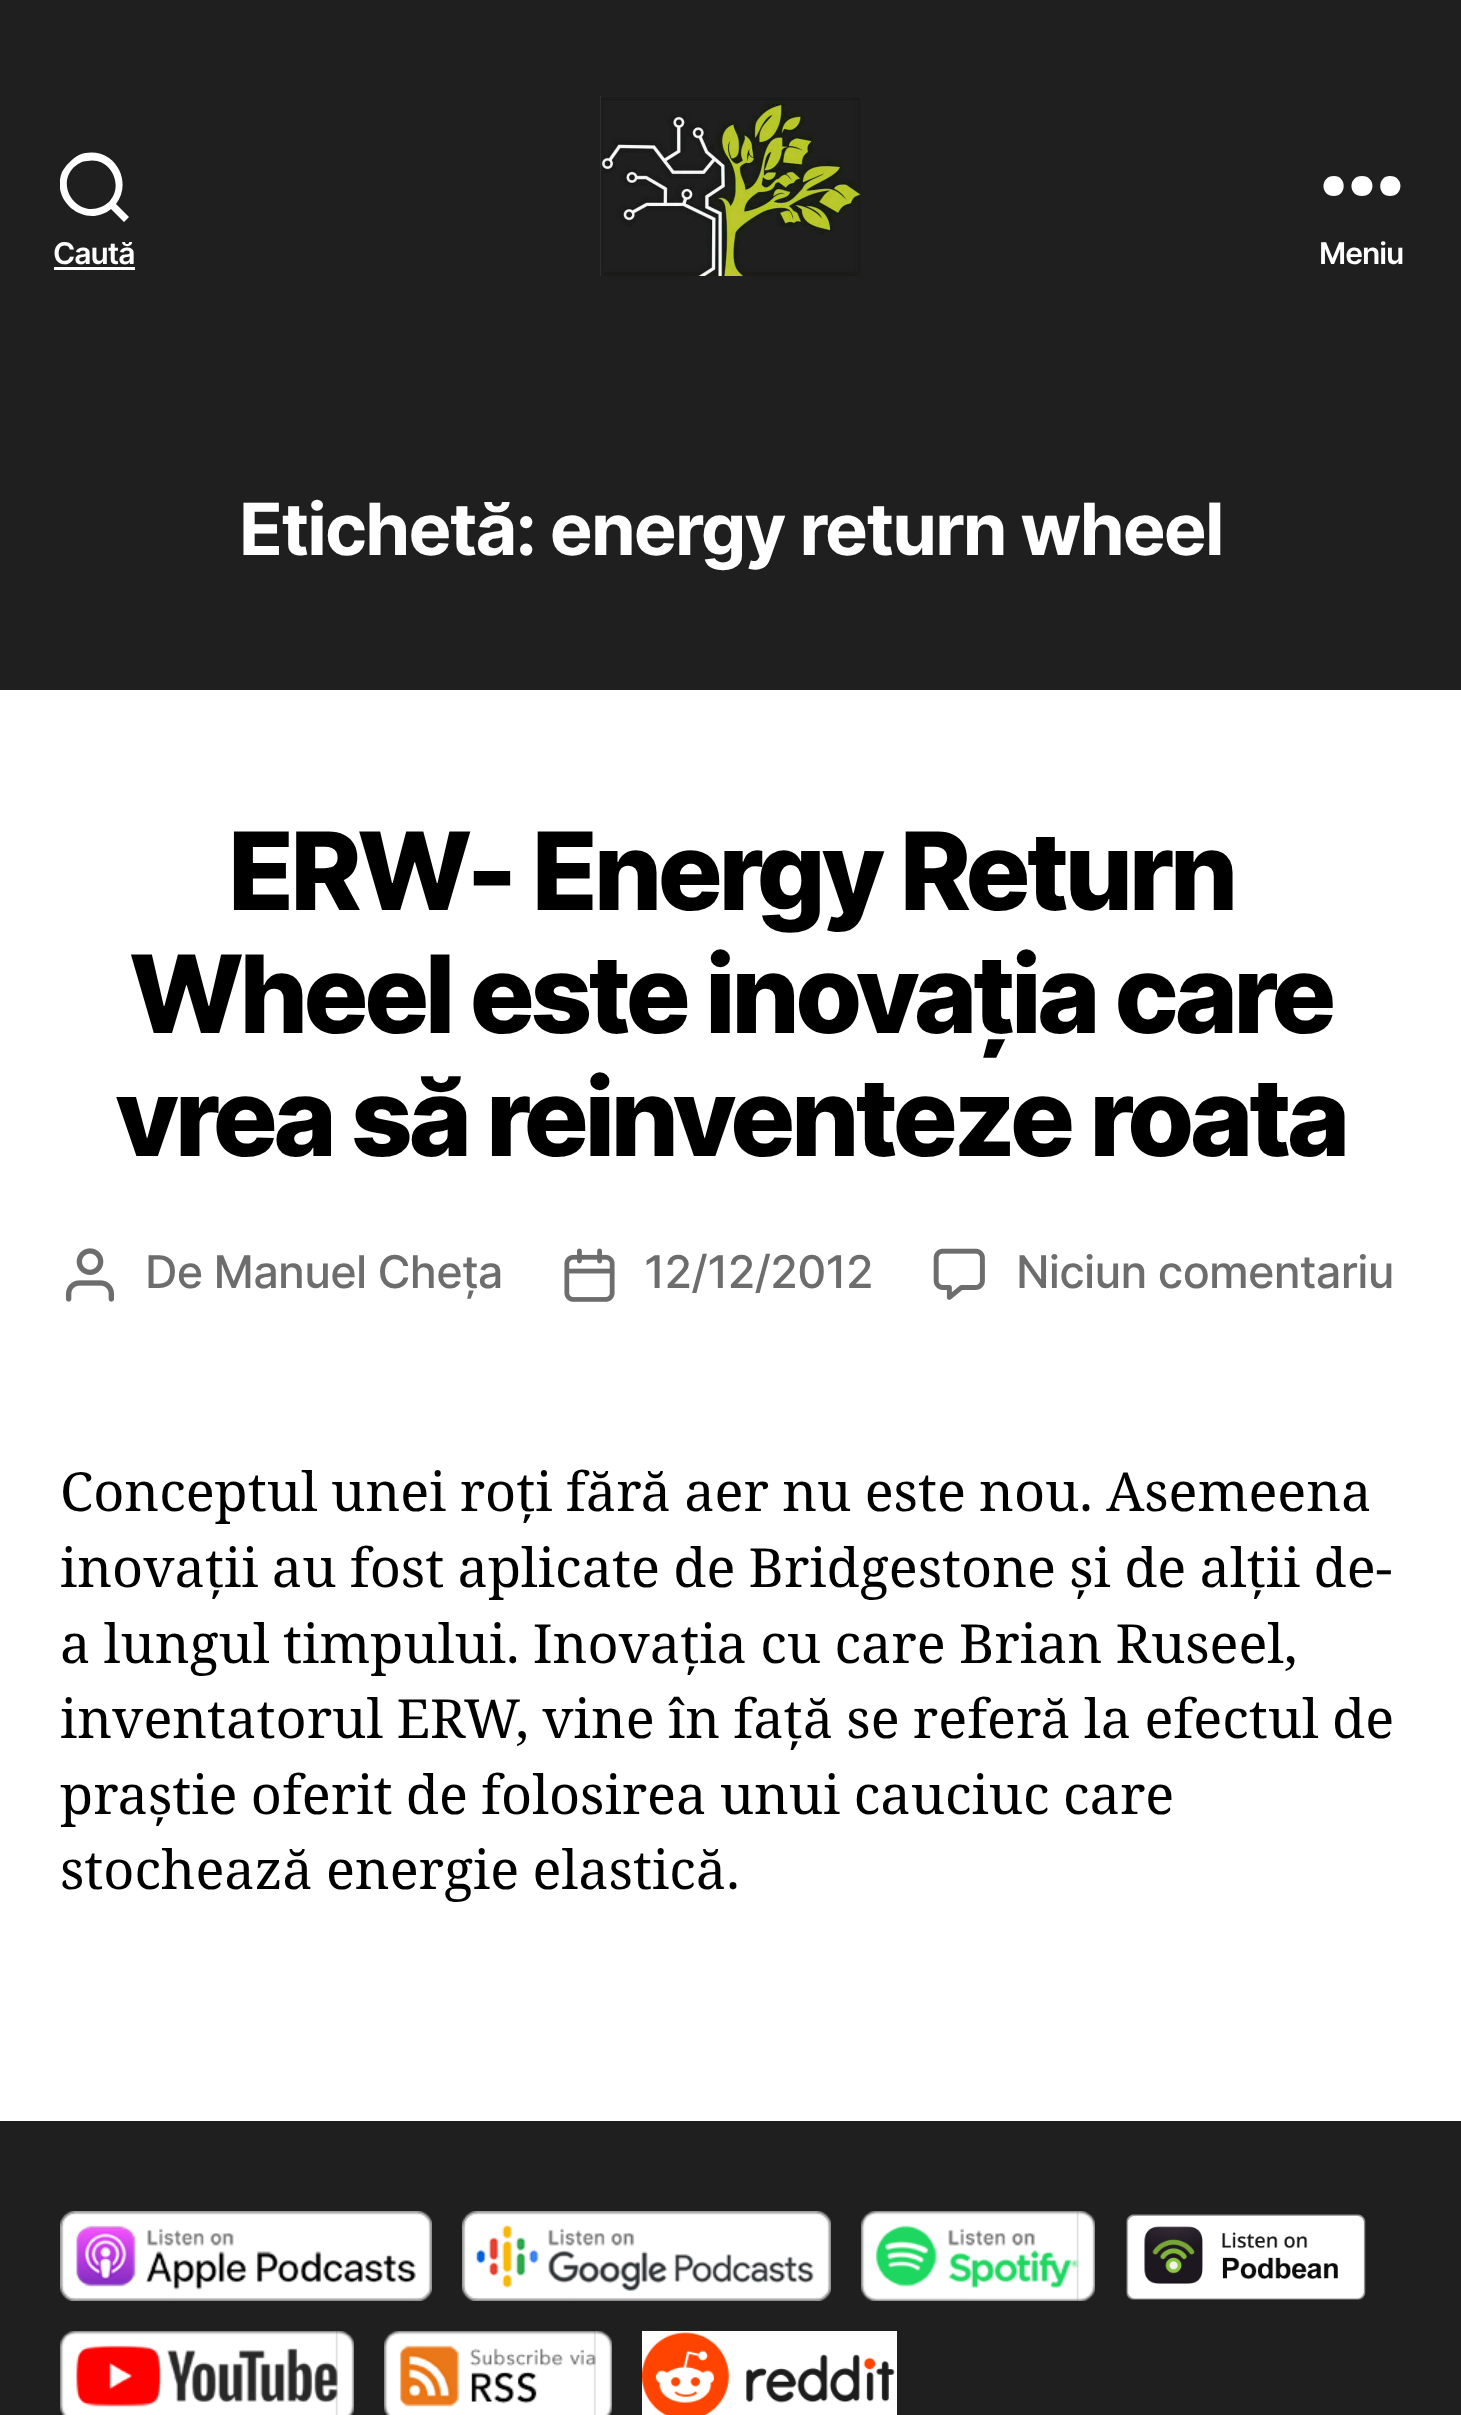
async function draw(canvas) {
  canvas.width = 1461;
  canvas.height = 2415;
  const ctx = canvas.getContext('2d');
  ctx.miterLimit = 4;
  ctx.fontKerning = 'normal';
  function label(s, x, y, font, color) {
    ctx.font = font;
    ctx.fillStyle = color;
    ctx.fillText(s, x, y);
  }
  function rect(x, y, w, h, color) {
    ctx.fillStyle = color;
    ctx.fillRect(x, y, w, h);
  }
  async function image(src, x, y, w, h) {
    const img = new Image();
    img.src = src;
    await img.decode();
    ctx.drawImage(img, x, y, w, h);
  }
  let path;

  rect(0, 0, 1461, 2415, '#fff');
  rect(0, 0, 1461, 690, '#1f1f1f');
  ctx.save();
  ctx.beginPath();
  ctx.rect(60, 150, 69, 75);
  ctx.clip();
  ctx.fillStyle = '#fff';
  path = new Path2D('M116 204L129 217L124 222L111 209C87 229 50 203 62 172C66 165 72 159 79 155C89 151 100 152 109 158C124 169 127 190 116 204ZM109 202C125 185 110 156 87 161C82 161 78 164 74 167C55 186 77 217 101 207C104 206 106 204 109 202Z');
  ctx.fill(path);
  ctx.restore();
  ctx.letterSpacing = '-1px';
  label('Caută', 53, 264, '600 30px Inter', '#fff');
  rect(54, 267, 81, 3, '#fff');
  await image('assets/img1.png', 600, 96, 261, 180);
  path = new Path2D('M1334 196C1320 196 1320 176 1334 176C1347 176 1347 196 1334 196ZM1362 196C1348 196 1348 176 1362 176C1376 176 1376 196 1362 196ZM1390 196C1377 196 1377 176 1390 176C1404 176 1404 196 1390 196Z');
  ctx.fill(path, 'evenodd');
  label('Meniu', 1319, 264, '600 30px Inter', '#fff');
  ctx.letterSpacing = '-1.9px';
  label('Etichetă: energy return wheel', 239, 555, 'bold 72px Inter', '#fff');
  ctx.letterSpacing = '-4.5px';
  label('ERW- Energy Return', 228, 910, '800 108px Inter', '#000');
  label('Wheel este inovația care', 129, 1033, '800 108px Inter', '#000');
  label('vrea să reinventeze roata', 115, 1156, '800 108px Inter', '#000');
  await image('assets/img2.png', 66, 1248, 48, 54);
  ctx.letterSpacing = '-0.75px';
  label('De Manuel Cheța', 145, 1288, '500 45px Inter', '#6d6d6d');
  await image('assets/img3.png', 564, 1248, 51, 54);
  label('12/12/2012', 644, 1288, '500 45px Inter', '#6d6d6d');
  await image('assets/img4.png', 933, 1248, 52, 52);
  label('Niciun comentariu', 1016, 1288, '500 45px Inter', '#6d6d6d');
  ctx.letterSpacing = '0px';
  ctx.wordSpacing = '-0.75px';
  label('Conceptul unei roți fără aer nu este nou. Asemeena', 60, 1511, '54px Noto Serif', '#000');
  label('inovații au fost aplicate de Bridgestone și de alții de-', 60, 1587, '54px Noto Serif', '#000');
  label('a lungul timpului. Inovația cu care Brian Ruseel,', 60, 1663, '54px Noto Serif', '#000');
  label('inventatorul ERW, vine în față se referă la efectul de', 60, 1738, '54px Noto Serif', '#000');
  label('praștie oferit de folosirea unui cauciuc care', 60, 1814, '54px Noto Serif', '#000');
  label('stochează energie elastică.', 60, 1889, '54px Noto Serif', '#000');
  rect(0, 2121, 1461, 294, '#1f1f1f');
  await image('assets/img5.png', 60, 2211, 372, 90);
  await image('assets/img6.png', 462, 2211, 369, 90);
  await image('assets/img7.png', 861, 2211, 234, 90);
  await image('assets/img8.png', 1126, 2214, 240, 86);
  await image('assets/img9.png', 60, 2331, 294, 84);
  await image('assets/img10.png', 384, 2331, 228, 84);
  rect(642, 2331, 255, 84, '#fff');
  await image('assets/img11.png', 642, 2332, 253, 83);
}

draw(document.querySelector('canvas'));
